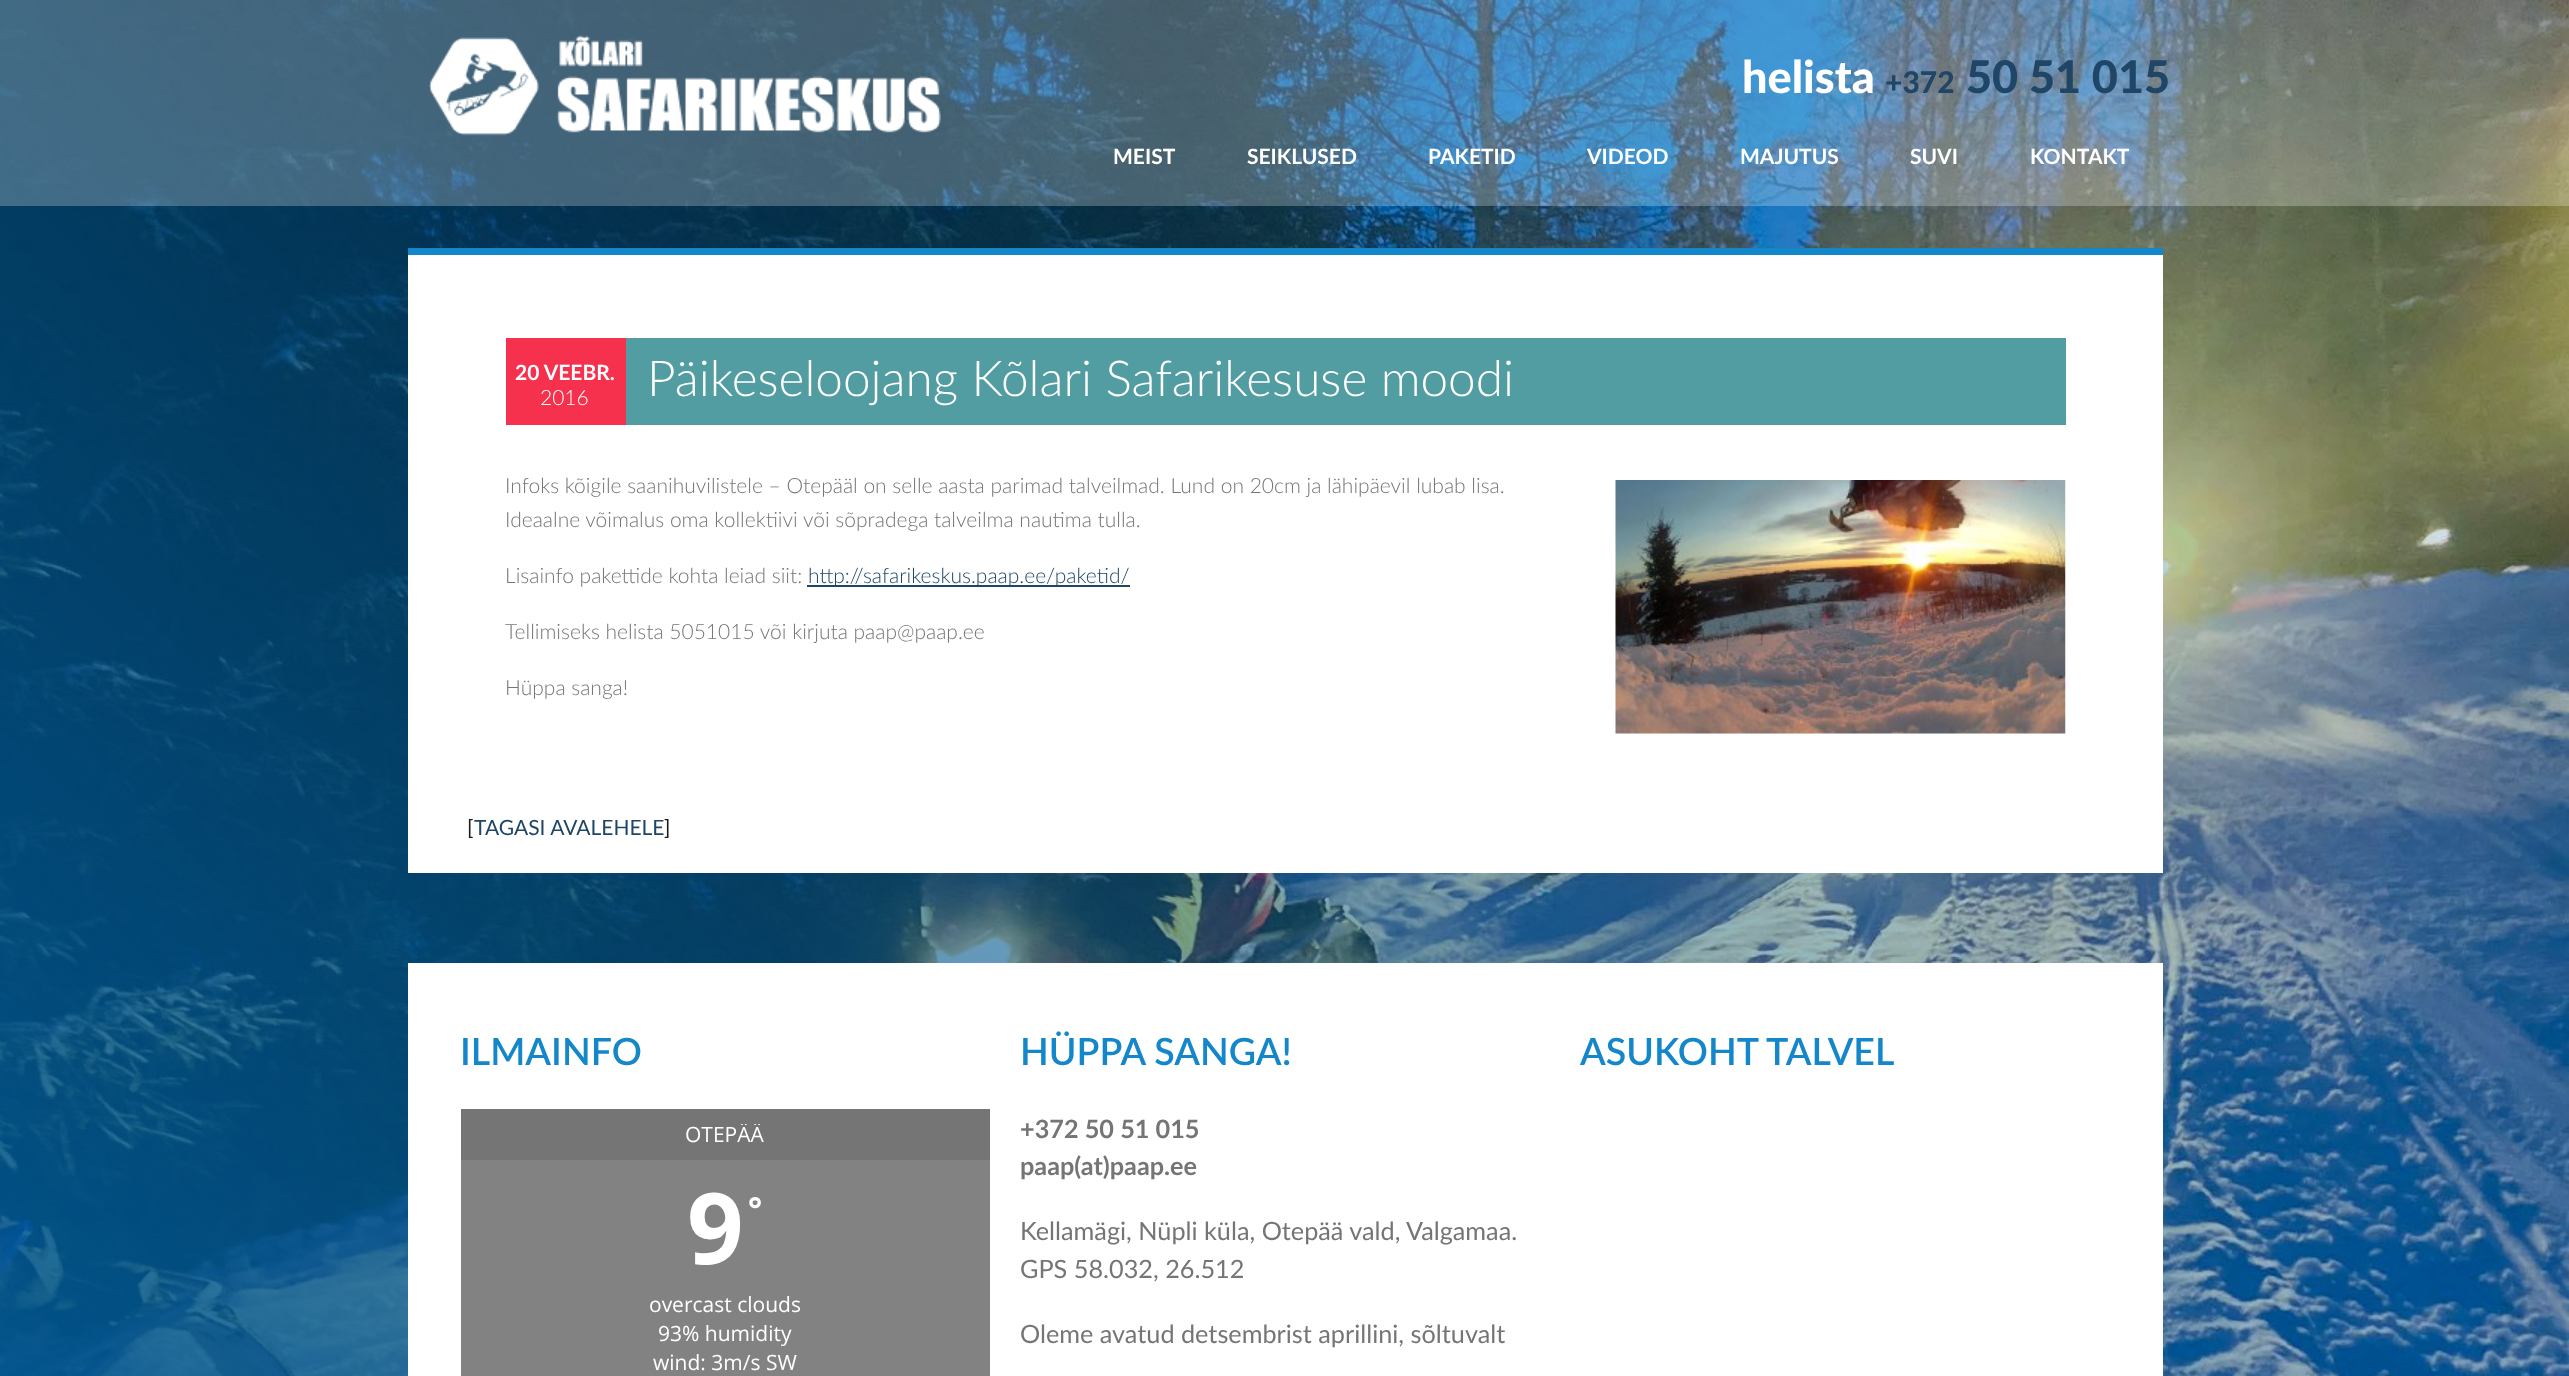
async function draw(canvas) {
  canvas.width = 2569;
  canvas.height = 1376;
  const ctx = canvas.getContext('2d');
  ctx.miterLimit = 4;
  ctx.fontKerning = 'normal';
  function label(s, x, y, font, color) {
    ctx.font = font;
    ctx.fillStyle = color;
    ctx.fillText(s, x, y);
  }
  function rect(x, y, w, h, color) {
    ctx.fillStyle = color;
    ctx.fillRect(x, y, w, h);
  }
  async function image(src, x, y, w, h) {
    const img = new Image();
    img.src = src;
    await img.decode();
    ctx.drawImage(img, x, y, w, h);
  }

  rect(0, 0, 2569, 1376, '#fff');
  await image('assets/img1.png', 0, 0, 2569, 1376);
  rect(0, 0, 2569, 206, '#ffffff40');
  await image('assets/img2.png', 428, 35, 513, 101);
  label('helista', 1742, 93, '900 45px Lato', '#fff');
  label('+372', 1885, 93, '900 30px Lato', '#1f4666');
  label('50 51 015', 1966, 93, '900 45px Lato', '#1f4666');
  label('MEIST', 1113, 164, 'bold 21px Lato', '#fff');
  label('SEIKLUSED', 1247, 164, 'bold 21px Lato', '#fff');
  label('PAKETID', 1428, 164, 'bold 21px Lato', '#fff');
  label('VIDEOD', 1587, 164, 'bold 21px Lato', '#fff');
  label('MAJUTUS', 1740, 164, 'bold 21px Lato', '#fff');
  label('SUVI', 1910, 164, 'bold 21px Lato', '#fff');
  label('KONTAKT', 2030, 164, 'bold 21px Lato', '#fff');
  rect(408, 255, 1755, 618, '#fff');
  rect(408, 248, 1755, 7, '#1487ca');
  rect(506, 338, 120, 87, '#f6314d');
  label('20 VEEBR.', 515, 380, 'bold 21px Lato', '#fff');
  label('2016', 540, 405, '300 21px Lato', '#fff');
  rect(626, 338, 1440, 87, '#529da1');
  label('Päikeseloojang Kõlari Safarikesuse moodi', 647, 396, '300 49.5px Lato', '#fff');
  label('Infoks kõigile saanihuvilistele – Otepääl on selle aasta parimad talveilmad. Lund on 20cm ja lähipäevil lubab lisa.', 505, 493, '300 21px Lato', '#757575');
  await image('assets/img3.png', 1615, 480, 451, 254);
  label('Ideaalne võimalus oma kollektiivi või sõpradega talveilma nautima tulla.', 505, 527, '300 21px Lato', '#757575');
  label('Lisainfo pakettide kohta leiad siit:', 505, 583, '300 21px Lato', '#757575');
  rect(807, 585, 323, 2, '#1f4666');
  label('http://safarikeskus.paap.ee/paketid/', 808, 583, '300 21px Lato', '#1f4666');
  label('Tellimiseks helista 5051015 või kirjuta paap@paap.ee', 505, 639, '300 21px Lato', '#757575');
  label('Hüppa sanga!', 505, 695, '300 21px Lato', '#757575');
  label('[', 467, 835, '21px Lato', '#191919');
  label('TAGASI AVALEHELE', 474, 835, '21px Lato', '#1f4666');
  label(']', 664, 835, '21px Lato', '#191919');
  rect(408, 963, 1755, 413, '#fff');
  label('ILMAINFO', 460, 1065, '600 37.5px Lato', '#1487ca');
  rect(461, 1160, 529, 216, '#828282');
  rect(461, 1109, 529, 51, '#757575');
  ctx.save();
  ctx.beginPath();
  ctx.rect(476, 1124, 499, 21);
  ctx.clip();
  label('OTEPÄÄ', 685, 1142, '21px Open Sans', '#fff');
  ctx.restore();
  label('9', 687, 1264, 'bold 99px Open Sans', '#fff');
  label('°', 748, 1221, 'bold 33px Open Sans', '#fff');
  label('overcast clouds', 649, 1312, '21px Open Sans', '#fff');
  label('93% humidity', 658, 1341, '21px Open Sans', '#fff');
  label('wind: 3m/s SW', 653, 1370, '21px Open Sans', '#fff');
  label('HÜPPA SANGA!', 1020, 1065, '600 37.5px Lato', '#1487ca');
  label('+372 50 51 015', 1020, 1138, 'bold 25.25px Lato', '#757575');
  label('paap(at)paap.ee', 1020, 1175, 'bold 25.25px Lato', '#757575');
  label('Kellamägi, Nüpli küla, Otepää vald, Valgamaa.', 1020, 1240, '25.25px Lato', '#757575');
  label('GPS 58.032, 26.512', 1020, 1278, '25.25px Lato', '#757575');
  label('Oleme avatud detsembrist aprillini, sõltuvalt', 1020, 1343, '25.25px Lato', '#757575');
  label('ASUKOHT TALVEL', 1580, 1065, '600 37.5px Lato', '#1487ca');
}

draw(document.querySelector('canvas'));
